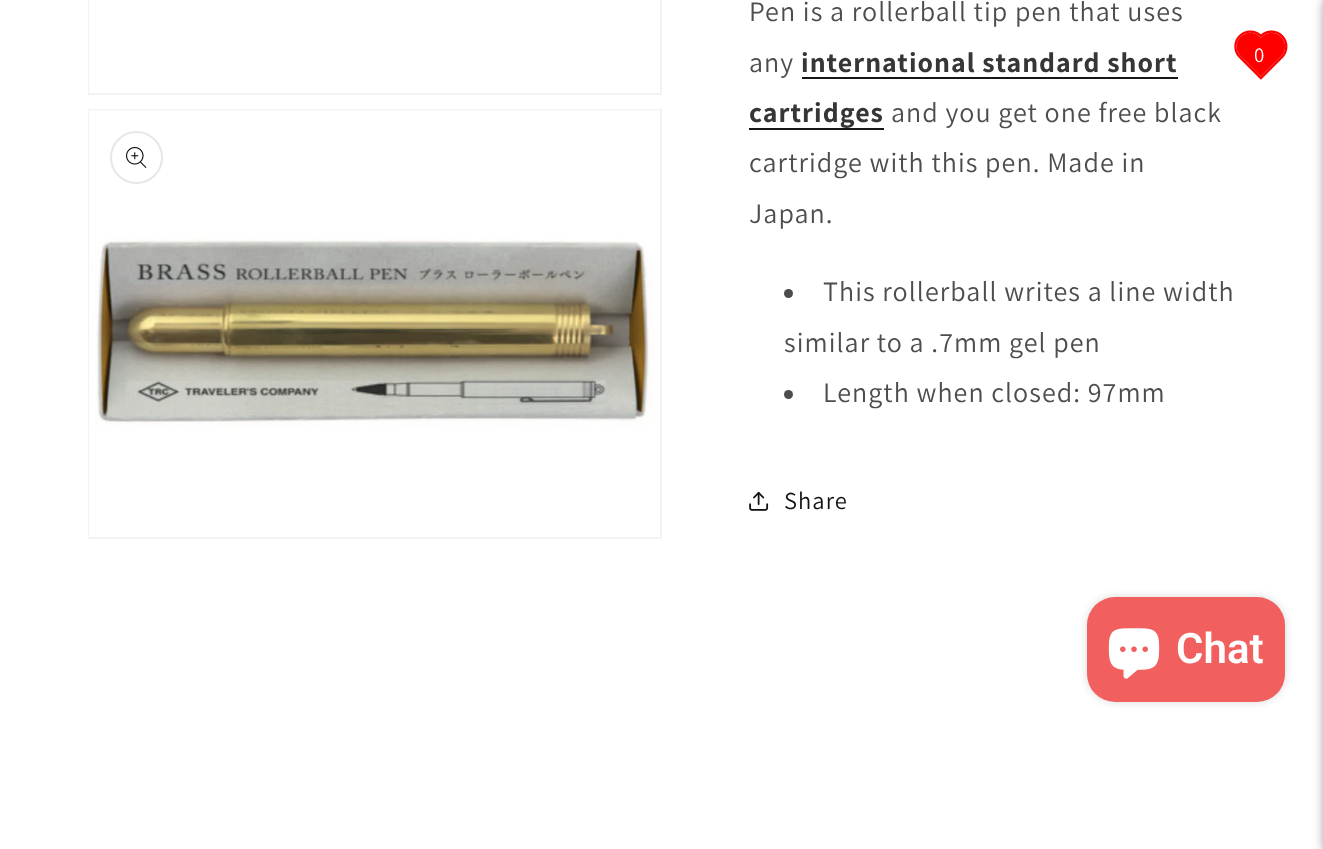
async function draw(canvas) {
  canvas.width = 1323;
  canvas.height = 849;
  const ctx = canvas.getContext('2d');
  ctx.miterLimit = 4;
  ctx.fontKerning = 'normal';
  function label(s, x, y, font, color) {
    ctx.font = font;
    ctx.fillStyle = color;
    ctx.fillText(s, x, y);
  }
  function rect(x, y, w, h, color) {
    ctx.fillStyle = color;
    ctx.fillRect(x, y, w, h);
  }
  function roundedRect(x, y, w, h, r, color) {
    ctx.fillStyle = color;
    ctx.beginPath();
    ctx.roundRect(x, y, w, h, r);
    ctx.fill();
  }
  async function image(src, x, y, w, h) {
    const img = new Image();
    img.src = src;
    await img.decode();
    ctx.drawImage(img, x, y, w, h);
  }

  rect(0, 0, 1323, 849, '#fff');
  ctx.strokeStyle = '#f3f3f3';
  ctx.lineWidth = 2;
  ctx.strokeRect(89, -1, 572, 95);
  await image('assets/img1.png', 89, 0, 1, 93);
  ctx.strokeRect(89, 110, 572, 428);
  await image('assets/img2.png', 89, 110, 570, 427);
  ctx.beginPath();
  ctx.arc(136.5, 157.5, 25.5, 0, 2 * Math.PI);
  ctx.strokeStyle = '#e7e7e7';
  ctx.stroke();
  await image('assets/img3.png', 126, 147, 21, 21);
  ctx.letterSpacing = '1.05px';
  label('Pen is a rollerball tip pen that uses', 749, 21, '28px Assistant', '#4d4d4d');
  label('any', 749, 72, '28px Assistant', '#4d4d4d');
  label('international standard short', 801, 72, 'bold 28px Assistant', '#363636');
  rect(802, 77, 376, 2, '#171717');
  label('cartridges', 749, 122, 'bold 28px Assistant', '#363636');
  rect(749, 128, 135, 2, '#171717');
  label('and you get one free black', 891, 122, '28px Assistant', '#4d4d4d');
  label('cartridge with this pen. Made in', 749, 172, '28px Assistant', '#4d4d4d');
  label('Japan.', 749, 223, '28px Assistant', '#4d4d4d');
  ctx.beginPath();
  ctx.arc(788.5, 293.5, 4.5, 0, 2 * Math.PI);
  ctx.fill();
  label('This rollerball writes a line width', 823, 301, '28px Assistant', '#4d4d4d');
  label('similar to a .7mm gel pen', 784, 352, '28px Assistant', '#4d4d4d');
  ctx.beginPath();
  ctx.arc(788.5, 394.5, 4.5, 0, 2 * Math.PI);
  ctx.fill();
  label('Length when closed: 97mm', 823, 402, '28px Assistant', '#4d4d4d');
  await image('assets/img4.png', 749, 492, 20, 19);
  label('Share', 784, 509, '24.5px Assistant', '#121212');
  await image('assets/img5.png', 1234, 30, 54, 50);
  label('0', 1254, 62, '21px Assistant', '#fff');
  ctx.fillStyle = '#00000080';
  ctx.filter = 'blur(6px)';
  ctx.beginPath();
  ctx.rect(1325, 0, 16, 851);
  ctx.fill();
  ctx.filter = 'none';
  ctx.fillStyle = '#00000026';
  ctx.filter = 'blur(4.5px)';
  ctx.beginPath();
  ctx.roundRect(1087, 597, 198, 105, 28);
  ctx.fill();
  ctx.filter = 'none';
  roundedRect(1087, 597, 198, 105, 28, '#f15f5f');
  await image('assets/img6.png', 1108, 628, 52, 51);
  ctx.letterSpacing = '0px';
  label('Chat', 1176, 663, '600 42px Roboto', '#fff');
}

draw(document.querySelector('canvas'));
